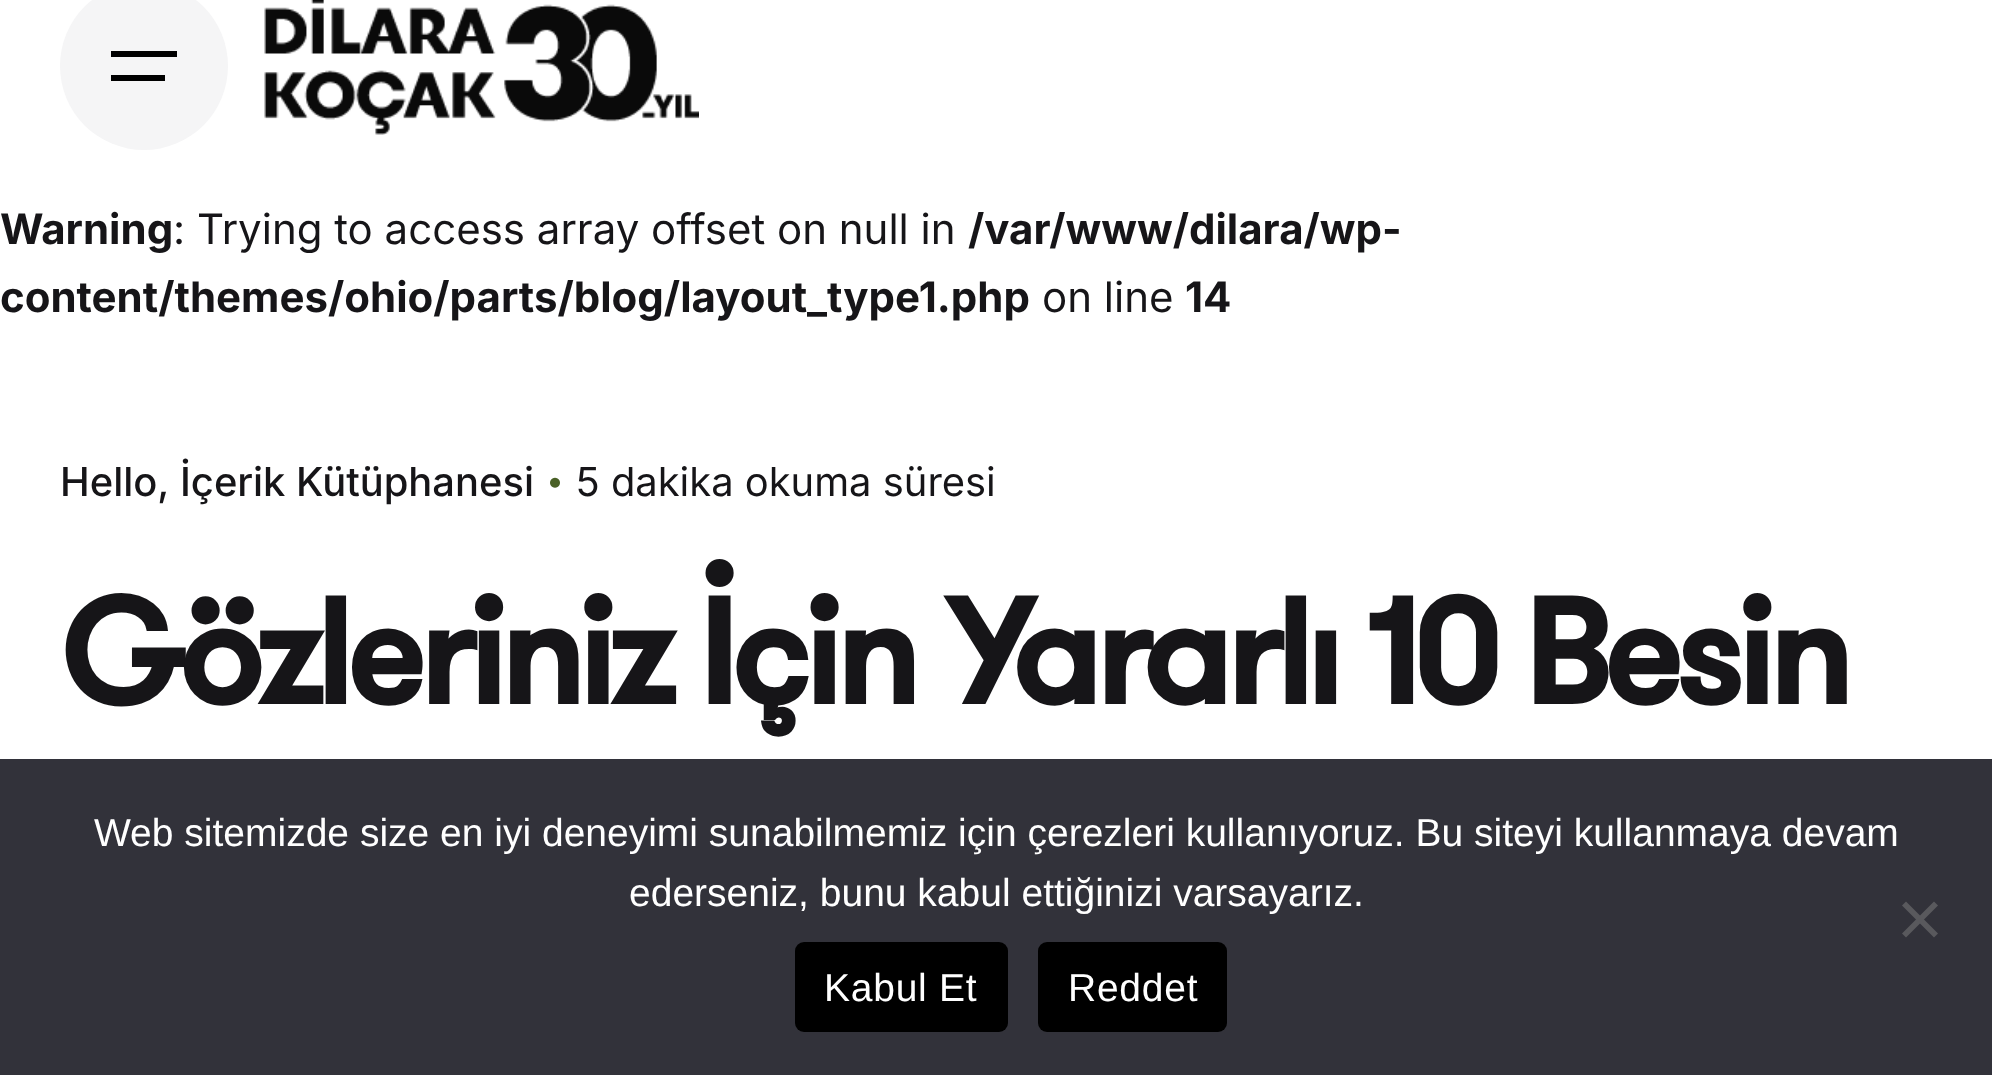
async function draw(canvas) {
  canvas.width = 1992;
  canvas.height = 1075;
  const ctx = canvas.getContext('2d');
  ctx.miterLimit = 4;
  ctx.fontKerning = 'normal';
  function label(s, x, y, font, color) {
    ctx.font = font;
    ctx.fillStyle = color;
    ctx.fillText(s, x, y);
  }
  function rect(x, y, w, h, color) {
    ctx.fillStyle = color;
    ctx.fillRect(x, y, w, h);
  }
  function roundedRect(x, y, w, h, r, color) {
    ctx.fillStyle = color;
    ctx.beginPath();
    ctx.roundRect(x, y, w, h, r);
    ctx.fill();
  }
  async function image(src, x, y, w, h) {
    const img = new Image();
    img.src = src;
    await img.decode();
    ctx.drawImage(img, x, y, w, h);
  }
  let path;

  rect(0, 0, 1992, 1075, '#fff');
  ctx.fillStyle = '#f5f5f6';
  ctx.beginPath();
  ctx.arc(144, 66, 84, 0, 2 * Math.PI);
  ctx.fill();
  rect(111, 51, 66, 6, '#000');
  rect(111, 75, 54, 6, '#000');
  await image('assets/img1.png', 264, 0, 435, 135);
  label('Warning', 0, 244, 'bold 42px Inter', '#161518');
  label(': Trying to access array offset on null in', 173, 244, '42px Inter', '#161518');
  label('/var/www/dilara/wp-', 968, 244, 'bold 42px Inter', '#161518');
  label('content/themes/ohio/parts/blog/layout_type1.php', 0, 312, 'bold 42px Inter', '#161518');
  label('on line', 1042, 312, '42px Inter', '#161518');
  label('14', 1185, 312, 'bold 42px Inter', '#161518');
  label('Hello,', 60, 496, '500 39.9px Inter', '#161518');
  label('İçerik Kütüphanesi', 180, 496, '500 39.9px Inter', '#161518');
  label('•', 546, 492, '32px Inter', '#496026');
  label('5 dakika okuma süresi', 576, 496, '39.9px Inter', '#161518');
  ctx.letterSpacing = '-6.7px';
  label('Gözleriniz İçin Yararlı 10 Besin', 60, 704, 'bold 149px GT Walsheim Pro', '#161518');
  rect(0, 759, 1992, 316, '#32323a');
  ctx.letterSpacing = '0px';
  label('Web sitemizde size en iyi deneyimi sunabilmemiz için çerezleri kullanıyoruz. Bu siteyi kullanmaya devam', 94, 846, '39px Liberation Sans', '#fff');
  label('ederseniz, bunu kabul ettiğinizi varsayarız.', 629, 906, '39px Liberation Sans', '#fff');
  ctx.fillStyle = '#59595d';
  path = new Path2D('M1934 901.5L1938 905.5L1906 937.5L1902 933.5Z');
  ctx.fill(path);
  path = new Path2D('M1902 905.5L1906 901.5L1938 933.5L1934 937.5Z');
  ctx.fill(path);
  roundedRect(795, 942, 213, 90, 9, '#000');
  ctx.letterSpacing = '0.75px';
  label('Kabul Et', 824, 1001, '39px Liberation Sans', '#fff');
  roundedRect(1038, 942, 189, 90, 9, '#000');
  label('Reddet', 1068, 1001, '39px Liberation Sans', '#fff');
}

draw(document.querySelector('canvas'));
